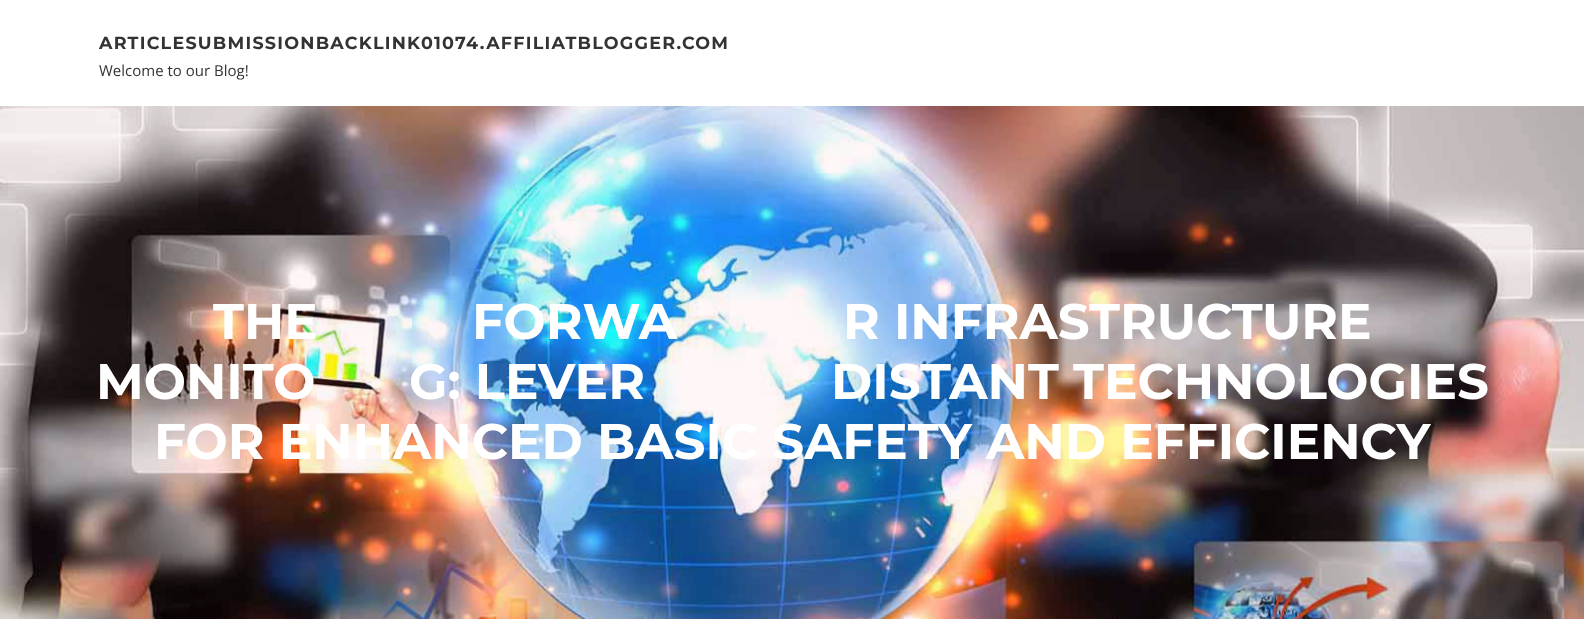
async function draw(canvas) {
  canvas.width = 1584;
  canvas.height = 619;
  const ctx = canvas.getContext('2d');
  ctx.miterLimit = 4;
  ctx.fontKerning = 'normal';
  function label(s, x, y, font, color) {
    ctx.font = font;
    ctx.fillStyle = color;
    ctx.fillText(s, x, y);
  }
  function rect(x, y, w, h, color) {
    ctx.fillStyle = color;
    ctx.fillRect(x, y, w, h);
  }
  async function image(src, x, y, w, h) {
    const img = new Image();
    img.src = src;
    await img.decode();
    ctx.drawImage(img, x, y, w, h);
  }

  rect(0, 0, 1584, 619, '#fff');
  ctx.letterSpacing = '1.25px';
  label('ARTICLESUBMISSIONBACKLINK01074.AFFILIATBLOGGER.COM', 99, 49, 'bold 17.5px Montserrat', '#333');
  ctx.letterSpacing = '0px';
  label('Welcome to our Blog!', 99, 76, '15px Open Sans', '#333');
  await image('assets/img1.png', 0, 106, 1584, 513);
  label('THE', 213, 339, 'bold 50px Montserrat', '#fff');
  label('FORWA', 472, 339, 'bold 50px Montserrat', '#fff');
  label('R INFRASTRUCTURE', 843, 339, 'bold 50px Montserrat', '#fff');
  label('MONITO', 96, 399, 'bold 50px Montserrat', '#fff');
  label('G: LEVER', 409, 399, 'bold 50px Montserrat', '#fff');
  label('DISTANT TECHNOLOGIES', 831, 399, 'bold 50px Montserrat', '#fff');
  label('FOR ENHANCED BASIC SAFETY AND EFFICIENCY', 154, 459, 'bold 50px Montserrat', '#fff');
}

draw(document.querySelector('canvas'));
